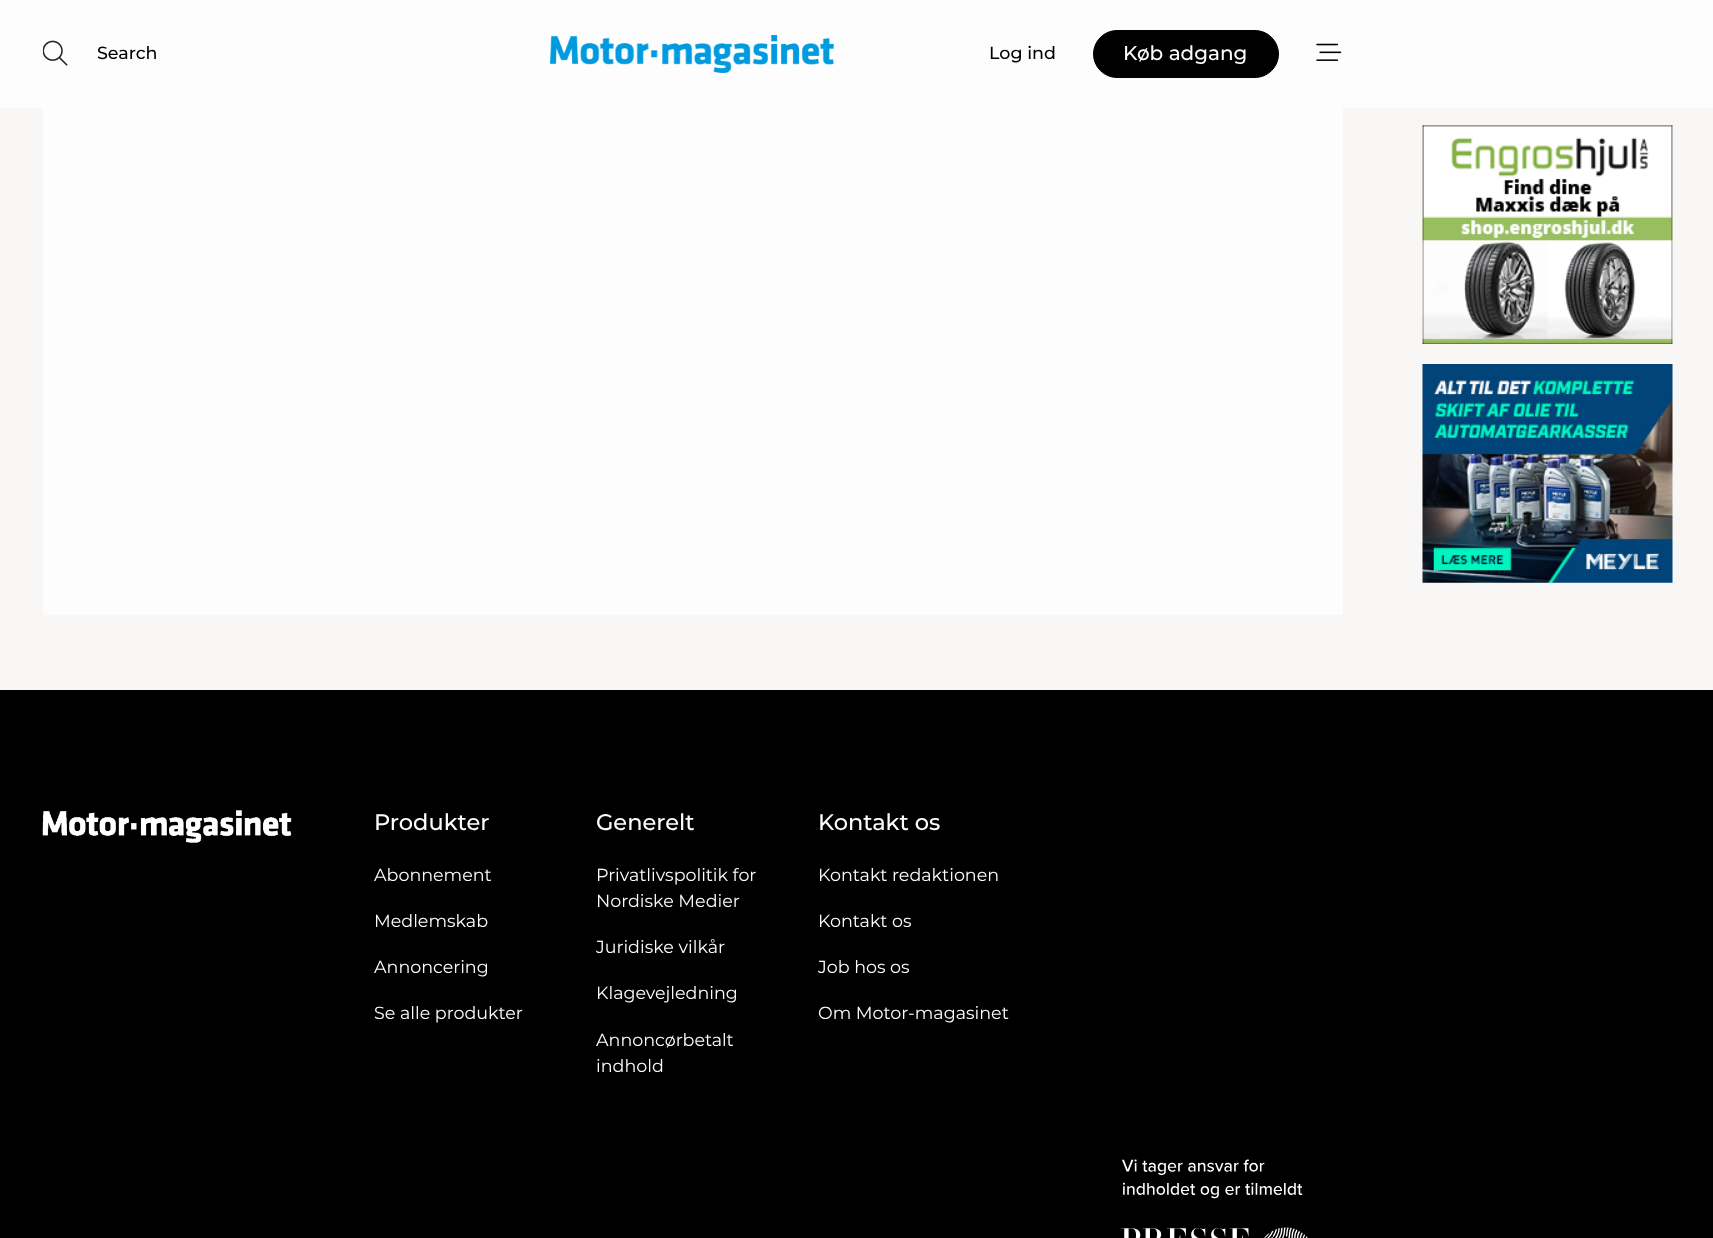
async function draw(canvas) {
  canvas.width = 1713;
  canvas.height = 1238;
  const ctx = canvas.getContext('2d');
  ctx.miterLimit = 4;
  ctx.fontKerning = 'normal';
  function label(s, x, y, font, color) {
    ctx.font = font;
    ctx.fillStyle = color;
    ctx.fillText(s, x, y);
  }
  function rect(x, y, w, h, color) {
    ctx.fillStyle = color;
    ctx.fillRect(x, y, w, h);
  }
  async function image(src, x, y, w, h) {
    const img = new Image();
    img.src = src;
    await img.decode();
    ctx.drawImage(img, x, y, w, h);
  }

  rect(0, 0, 1713, 1238, '#f8f7f6');
  rect(0, 0, 1713, 108, '#fdfdfd');
  await image('assets/img1.png', 43, 40, 25, 26);
  label('Search', 97, 59, '500 17.5px Montserrat', '#000');
  await image('assets/img2.png', 550, 35, 284, 38);
  label('Log ind', 989, 59, '500 17.5px Montserrat', '#000');
  ctx.beginPath();
  ctx.roundRect(1093.5, 30.5, 185, 47, 23.5);
  ctx.fill();
  ctx.strokeStyle = '#000';
  ctx.stroke();
  label('Køb adgang', 1123, 60, '500 20px Montserrat', '#fdfdfd');
  await image('assets/img3.png', 1316, 43, 26, 18);
  rect(43, 108, 1300, 507, '#fdfdfd');
  await image('assets/img4.png', 1422, 125, 251, 219);
  await image('assets/img5.png', 1422, 364, 251, 219);
  rect(0, 690, 1713, 548, '#000');
  await image('assets/img6.png', 42, 810, 250, 33);
  label('Produkter', 374, 830, '500 22.5px Montserrat', '#fdfdfd');
  label('Abonnement', 374, 881, '17.5px Montserrat', '#fdfdfd');
  label('Medlemskab', 374, 927, '17.5px Montserrat', '#fdfdfd');
  label('Annoncering', 374, 973, '17.5px Montserrat', '#fdfdfd');
  label('Se alle produkter', 374, 1019, '17.5px Montserrat', '#fdfdfd');
  label('Generelt', 596, 830, '500 22.5px Montserrat', '#fdfdfd');
  label('Privatlivspolitik for', 596, 881, '17.5px Montserrat', '#fdfdfd');
  label('Nordiske Medier', 596, 907, '17.5px Montserrat', '#fdfdfd');
  label('Juridiske vilkår', 596, 953, '17.5px Montserrat', '#fdfdfd');
  label('Klagevejledning', 596, 999, '17.5px Montserrat', '#fdfdfd');
  label('Annoncørbetalt', 596, 1046, '17.5px Montserrat', '#fdfdfd');
  label('indhold', 596, 1072, '17.5px Montserrat', '#fdfdfd');
  label('Kontakt os', 818, 830, '500 22.5px Montserrat', '#fdfdfd');
  label('Kontakt redaktionen', 818, 881, '17.5px Montserrat', '#fdfdfd');
  label('Kontakt os', 818, 927, '17.5px Montserrat', '#fdfdfd');
  label('Job hos os', 818, 973, '17.5px Montserrat', '#fdfdfd');
  label('Om Motor-magasinet', 818, 1019, '17.5px Montserrat', '#fdfdfd');
  await image('assets/img7.png', 1121, 1159, 187, 79);
}

draw(document.querySelector('canvas'));
